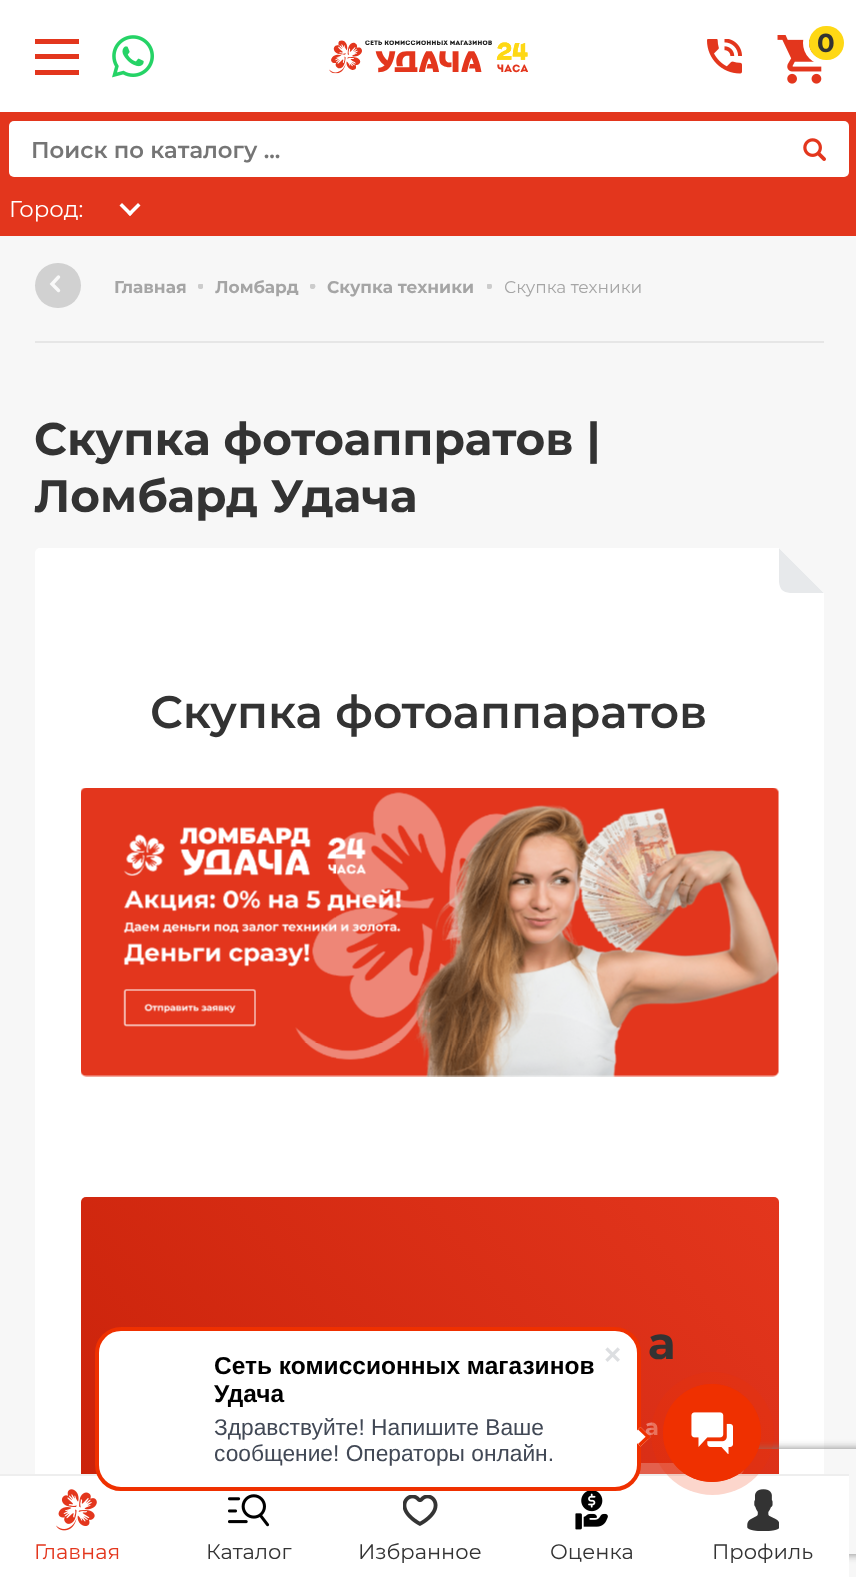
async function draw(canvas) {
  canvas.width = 856;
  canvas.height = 1577;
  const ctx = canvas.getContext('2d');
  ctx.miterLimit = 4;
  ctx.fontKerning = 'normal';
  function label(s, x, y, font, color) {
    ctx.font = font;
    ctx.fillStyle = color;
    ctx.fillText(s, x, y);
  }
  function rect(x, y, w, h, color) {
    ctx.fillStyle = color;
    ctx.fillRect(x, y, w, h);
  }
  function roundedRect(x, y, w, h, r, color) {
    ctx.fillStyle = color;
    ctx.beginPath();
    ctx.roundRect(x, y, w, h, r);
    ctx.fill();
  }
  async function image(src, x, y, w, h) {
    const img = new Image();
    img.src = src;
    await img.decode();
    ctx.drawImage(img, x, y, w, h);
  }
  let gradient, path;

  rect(0, 0, 856, 1577, '#f7f7f7');
  rect(0, 0, 856, 112, '#fff');
  rect(35, 39, 44, 5, '#e3361d');
  rect(35, 54, 44, 5, '#e3361d');
  rect(35, 70, 44, 5, '#e3361d');
  await image('assets/img1.png', 112, 35, 42, 43);
  await image('assets/img2.png', 329, 40, 199, 34);
  await image('assets/img3.png', 707, 39, 35, 35);
  await image('assets/img4.png', 777, 35, 45, 49);
  ctx.beginPath();
  ctx.roundRect(806, 24, 40, 38, 19);
  ctx.strokeStyle = '#fff';
  ctx.lineWidth = 6;
  ctx.stroke();
  roundedRect(809, 26, 35, 34, 17, '#fed815');
  label('0', 817, 52, 'bold 26px Montserrat', '#333');
  rect(0, 112, 856, 124, '#e3361d');
  ctx.fillStyle = '#fff';
  ctx.beginPath();
  ctx.roundRect(9, 121, 772, 56, [5, 0, 0, 5]);
  ctx.fill();
  label('Поиск по каталогу ...', 31, 158, '600 22.75px Montserrat', '#757575');
  ctx.fillStyle = '#fff';
  ctx.beginPath();
  ctx.roundRect(781, 121, 68, 56, [0, 5, 5, 0]);
  ctx.fill();
  await image('assets/img5.png', 803, 138, 23, 23);
  label('Город:', 9, 217, '22.75px Montserrat', '#fff');
  path = new Path2D('M138 203L140.5 205.5L130 216L127.5 213.5Z');
  ctx.fill(path);
  path = new Path2D('M122 203L132.5 213.5L130 216L119.5 205.5Z');
  ctx.fill(path);
  rect(35, 341, 789, 2, '#e6e6e6');
  roundedRect(35, 263, 46, 45, 22.5, '#d1d1d1');
  path = new Path2D('M58.5 277L52 284L58.5 290.5');
  ctx.strokeStyle = '#f9f9f9';
  ctx.lineWidth = 3.4;
  ctx.lineCap = 'round';
  ctx.stroke(path);
  label('Главная', 114, 293, 'bold 17px Montserrat', '#a5a5a5');
  ctx.save();
  ctx.beginPath();
  ctx.rect(198, 284, 5, 5);
  ctx.clip();
  ctx.fillStyle = '#ccc';
  ctx.beginPath();
  ctx.arc(200.6, 286.3, 2.8, 0, 2 * Math.PI);
  ctx.fill();
  ctx.restore();
  label('Ломбард', 215, 293, 'bold 17px Montserrat', '#a5a5a5');
  ctx.save();
  ctx.beginPath();
  ctx.rect(310, 284, 7, 5);
  ctx.clip();
  ctx.fillStyle = '#ccc';
  ctx.beginPath();
  ctx.arc(312.6, 286.3, 2.8, 0, 2 * Math.PI);
  ctx.fill();
  ctx.restore();
  label('Скупка техники', 327, 293, 'bold 17px Montserrat', '#a5a5a5');
  ctx.save();
  ctx.beginPath();
  ctx.rect(487, 284, 5, 5);
  ctx.clip();
  ctx.fillStyle = '#ccc';
  ctx.beginPath();
  ctx.arc(489.3, 286.3, 2.8, 0, 2 * Math.PI);
  ctx.fill();
  ctx.restore();
  label('Скупка техники', 504, 293, '17px Montserrat', '#a5a5a5');
  label('Скупка фотоаппратов |', 34, 455, 'bold 45.5px Montserrat', '#333');
  label('Ломбард Удача', 34, 512, 'bold 45.5px Montserrat', '#333');
  roundedRect(35, 548, 789, 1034, 5, '#fff');
  ctx.save();
  ctx.beginPath();
  ctx.rect(779, 548, 45, 45);
  ctx.clip();
  ctx.fillStyle = '#e7e9eb';
  path = new Path2D('M779 548L824 593C772 593 779 600 779 548Z');
  ctx.fill(path);
  ctx.restore();
  ctx.fillStyle = '#f7f7f7';
  path = new Path2D('M824 593L779 548H824Z');
  ctx.fill(path);
  label('Скупка фотоаппаратов', 150, 728, '600 45.5px Montserrat', '#333');
  await image('assets/img6.png', 81, 788, 698, 289);
  gradient = ctx.createLinearGradient(0.2, 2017, 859, 1292);
  gradient.addColorStop(0, '#bd1800');
  gradient.addColorStop(1, '#e3361d');
  ctx.fillStyle = gradient;
  ctx.beginPath();
  ctx.roundRect(81, 1197, 698, 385, 5);
  ctx.fill();
  label('а', 648, 1359, 'bold 45.5px Montserrat', '#333');
  label('а', 645, 1435, 'bold 22.75px Montserrat', '#e98274');
  ctx.save();
  path = new Path2D('M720 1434H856V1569H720ZM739 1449H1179C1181 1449 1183 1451 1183 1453V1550C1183 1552 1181 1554 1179 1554H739C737 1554 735 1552 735 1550V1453C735 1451 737 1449 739 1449Z');
  ctx.clip(path, 'evenodd');
  ctx.fillStyle = '#808080';
  ctx.filter = 'blur(4.5px)';
  ctx.beginPath();
  ctx.roundRect(735, 1449, 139, 105, 4);
  ctx.fill();
  ctx.filter = 'none';
  ctx.restore();
  roundedRect(114, 1463, 630, 12, 6, '#ffffff3d');
  rect(0, 1476, 849, 101, '#fff');
  rect(0, 1474, 849, 2, '#eee');
  await image('assets/img7.png', 56, 1489, 41, 42);
  label('Главная', 34, 1559, '21px Montserrat', '#e3361d');
  await image('assets/img8.png', 228, 1494, 42, 33);
  label('Каталог', 206, 1559, '21px Montserrat', '#333');
  await image('assets/img9.png', 403, 1495, 35, 31);
  label('Избранное', 358, 1559, '21px Montserrat', '#333');
  await image('assets/img10.png', 575, 1491, 33, 39);
  label('Оценка', 550, 1559, '21px Montserrat', '#333');
  await image('assets/img11.png', 747, 1489, 32, 42);
  label('Профиль', 712, 1559, '21px Montserrat', '#333');
  ctx.fillStyle = '#fff';
  ctx.beginPath();
  ctx.roundRect(97, 1329, 542, 160, 24);
  ctx.fill();
  ctx.strokeStyle = '#ef3000';
  ctx.lineWidth = 4;
  ctx.stroke();
  await image('assets/img12.png', 605, 1347, 15, 15);
  label('Cеть комиссионных магазинов', 214, 1374, 'bold 24.5px Liberation Sans', '#000');
  label('Удача', 214, 1402, 'bold 24.5px Liberation Sans', '#000');
  label('Здравствуйте! Напишите Ваше', 214, 1435, '22.75px Liberation Sans', '#424956');
  label('сообщение! Операторы онлайн.', 214, 1461, '22.75px Liberation Sans', '#424956');
  ctx.fillStyle = '#fff';
  path = new Path2D('M630.5 1437L640.5 1427L650.5 1437L640.5 1446.5Z');
  ctx.fill(path);
  ctx.fillStyle = '#ef3000';
  path = new Path2D('M638 1429.5L640.5 1427L650.5 1437L648 1439Z');
  ctx.fill(path);
  path = new Path2D('M638 1444L648 1434.5L650.5 1437L640.5 1446.5Z');
  ctx.fill(path);
  ctx.fillStyle = '#ef300033';
  ctx.beginPath();
  ctx.arc(712.5, 1433.5, 61.5, 0, 2 * Math.PI);
  ctx.fill();
  ctx.beginPath();
  ctx.arc(712, 1433, 48.5, 0, 2 * Math.PI);
  ctx.lineWidth = 1;
  ctx.stroke();
  ctx.fillStyle = '#ef3000';
  ctx.beginPath();
  ctx.arc(712, 1433, 49, 0, 2 * Math.PI);
  ctx.fill();
  await image('assets/img13.png', 691, 1412, 42, 42);
}

draw(document.querySelector('canvas'));
